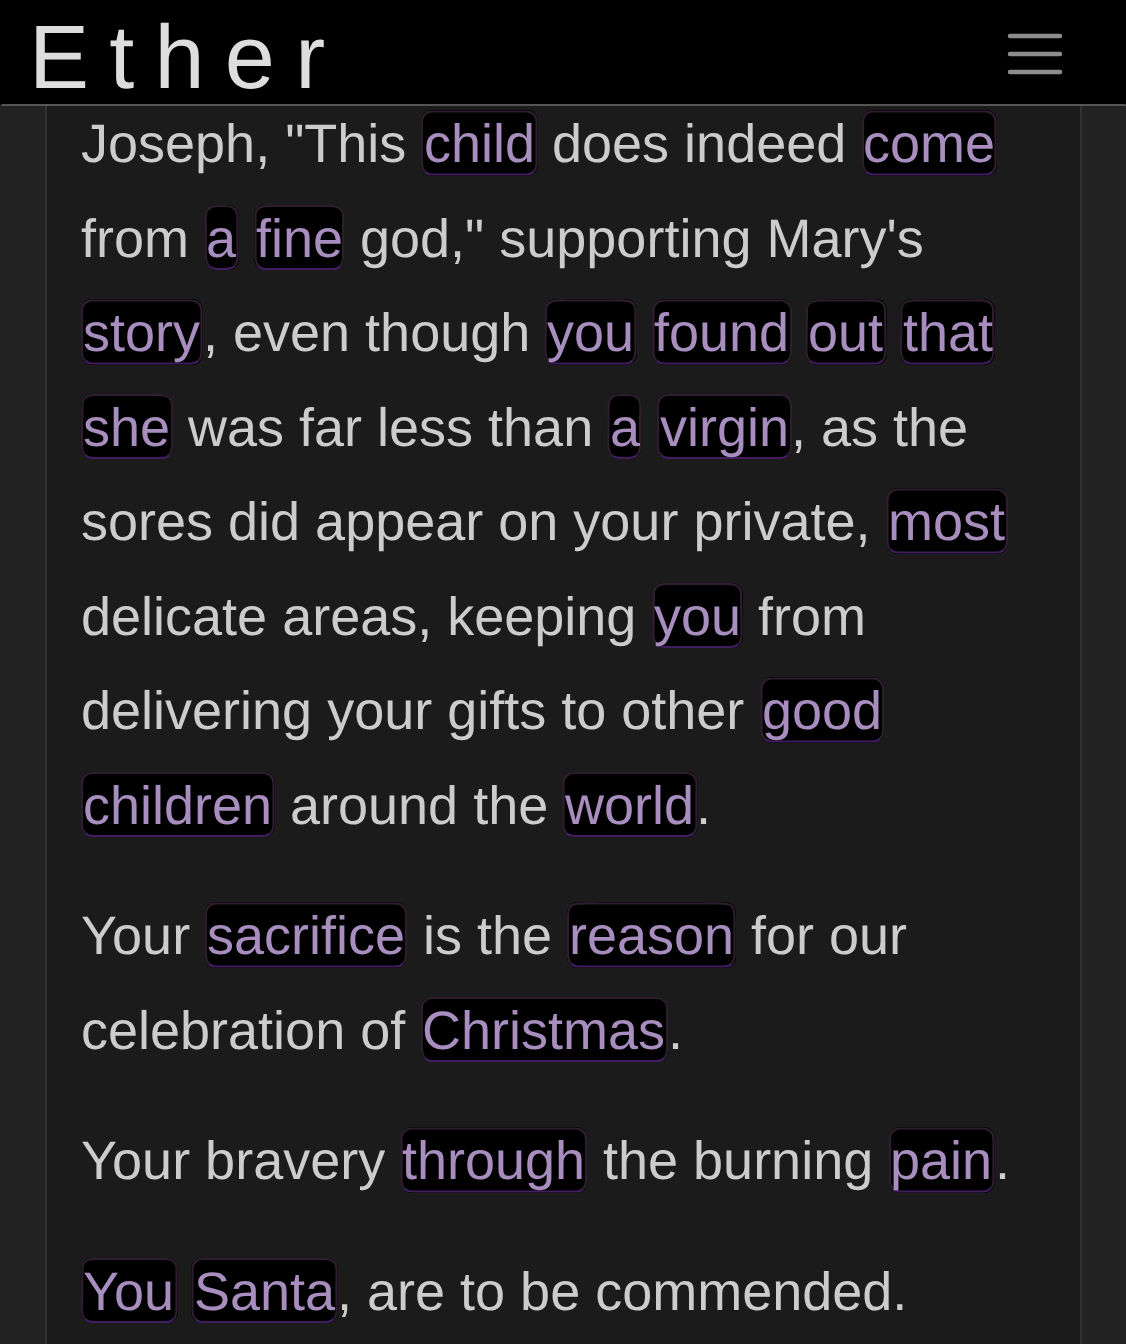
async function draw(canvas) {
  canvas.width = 1126;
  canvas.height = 1344;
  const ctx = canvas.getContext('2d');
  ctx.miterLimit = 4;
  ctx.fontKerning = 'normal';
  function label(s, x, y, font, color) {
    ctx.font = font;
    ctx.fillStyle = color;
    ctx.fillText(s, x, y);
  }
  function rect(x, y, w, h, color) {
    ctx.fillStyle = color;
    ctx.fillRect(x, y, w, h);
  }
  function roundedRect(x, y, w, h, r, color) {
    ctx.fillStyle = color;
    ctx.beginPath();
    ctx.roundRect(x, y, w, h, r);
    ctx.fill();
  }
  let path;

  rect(0, 0, 1126, 1344, '#222');
  rect(47, 106, 1033, 1238, '#1b1b1b');
  ctx.strokeStyle = '#323232';
  ctx.lineWidth = 2;
  ctx.strokeRect(46, -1, 1035, 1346);
  rect(0, 0, 1126, 106, '#000');
  ctx.fillStyle = '#555';
  path = new Path2D('M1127 106H0L2 104H1125Z');
  ctx.fill(path);
  ctx.fillStyle = '#00000099';
  path = new Path2D('M0 106V0L2 2V104Z');
  ctx.fill(path);
  ctx.letterSpacing = '20.25px';
  label('Ether', 29, 88, '90px Liberation Sans', '#ddd');
  path = new Path2D('M1010 36H1060M1010 54H1060M1010 72H1060');
  ctx.strokeStyle = '#8c8c8c';
  ctx.lineWidth = 4.5;
  ctx.lineCap = 'round';
  ctx.stroke(path);
  ctx.letterSpacing = '0px';
  label('Joseph, "This', 81, 162, '54px Liberation Sans', '#ccc');
  roundedRect(421, 110, 117, 66, 11, '#000');
  path = new Path2D('M533.5 171.5C532 173.5 529 174.5 526.5 174.5H432C429.5 174.5 426.5 173.5 425 171.5');
  ctx.strokeStyle = '#3f1d5f';
  ctx.lineWidth = 2.2;
  ctx.lineCap = 'butt';
  ctx.stroke(path);
  path = new Path2D('M425 171.5C423 169.5 422 167 422 164V121.5C422 119 423 116 425 114.5C426.5 112.5 429.5 111.5 432 111.5H526.5C529 111.5 532 112.5 533.5 114.5C535.5 116 536.5 119 536.5 121.5V164C536.5 167 535.5 169.5 533.5 171.5');
  ctx.strokeStyle = '#2d1d2d';
  ctx.stroke(path);
  label('child', 424, 162, '54px Liberation Sans', '#a88dbf');
  label('does indeed', 552, 162, '54px Liberation Sans', '#ccc');
  roundedRect(862, 110, 135, 66, 11, '#000');
  path = new Path2D('M992.5 171.5C991 173.5 988 174.5 985.5 174.5H873C870.5 174.5 867.5 173.5 866 171.5');
  ctx.strokeStyle = '#3f1d5f';
  ctx.stroke(path);
  path = new Path2D('M866 171.5C864 169.5 863 167 863 164V121.5C863 119 864 116 866 114.5C867.5 112.5 870.5 111.5 873 111.5H985.5C988 111.5 991 112.5 992.5 114.5C994.5 116 995.5 119 995.5 121.5V164C995.5 167 994.5 169.5 992.5 171.5');
  ctx.strokeStyle = '#2d1d2d';
  ctx.stroke(path);
  label('come', 863, 162, '54px Liberation Sans', '#a88dbf');
  label('from', 81, 257, '54px Liberation Sans', '#ccc');
  roundedRect(205, 205, 34, 65, 11, '#000');
  path = new Path2D('M234.5 266C231 269.5 226 269 221.5 269C217 269 212.5 269.5 209 266');
  ctx.strokeStyle = '#3f1d5f';
  ctx.stroke(path);
  path = new Path2D('M209 266C205 262 206 256.5 206 251.5V230C206 225 204.5 216 207 211C210 205.5 216 206 221.5 206C227.5 206 234 205.5 236.5 212C238 215.5 237.5 220 237.5 223V244.5C237.5 250.5 239.5 261 234.5 266');
  ctx.strokeStyle = '#2d1d2d';
  ctx.stroke(path);
  label('a', 206, 257, '54px Liberation Sans', '#a88dbf');
  roundedRect(254, 205, 90, 65, 11, '#000');
  path = new Path2D('M340 266C338.5 268 335.5 269 333 269H265.5C263 269 260 268 258.5 266');
  ctx.strokeStyle = '#3f1d5f';
  ctx.stroke(path);
  path = new Path2D('M258.5 266C254.5 262 255.5 256.5 255.5 251.5V214C257.5 204 269.5 206 277 206H322C329 206 341 204 343 214V251.5C343 256.5 344 262 340 266');
  ctx.strokeStyle = '#2d1d2d';
  ctx.stroke(path);
  label('fine', 256, 257, '54px Liberation Sans', '#a88dbf');
  label('god," supporting Mary\'s', 360, 257, '54px Liberation Sans', '#ccc');
  roundedRect(81, 299, 122, 66, 11, '#000');
  path = new Path2D('M198.5 360.5C196.5 362.5 194 363.5 191 363.5H92C89.5 363.5 87 362.5 85 360.5');
  ctx.strokeStyle = '#3f1d5f';
  ctx.stroke(path);
  path = new Path2D('M85 360.5C83 358.5 82 356 82 353V310.5C82 308 83 305 85 303.5C87 301.5 89.5 300.5 92 300.5H191C194 300.5 196.5 301.5 198.5 303.5C200.5 305 201.5 308 201.5 310.5V353C201.5 356 200.5 358.5 198.5 360.5');
  ctx.strokeStyle = '#2d1d2d';
  ctx.stroke(path);
  label('story', 83, 351, '54px Liberation Sans', '#a88dbf');
  label(', even though', 203, 351, '54px Liberation Sans', '#ccc');
  roundedRect(545, 299, 92, 66, 11, '#000');
  path = new Path2D('M632.5 360.5C631 362.5 628 363.5 625.5 363.5H556C553 363.5 550.5 362.5 548.5 360.5');
  ctx.strokeStyle = '#3f1d5f';
  ctx.stroke(path);
  path = new Path2D('M548.5 360.5C544.5 356.5 545.5 351 545.5 346L546 308.5C548 298.5 560 300.5 567.5 300.5H614C621.5 300.5 633.5 298.5 635.5 308.5V346C635.5 351 636.5 356.5 632.5 360.5');
  ctx.strokeStyle = '#2d1d2d';
  ctx.stroke(path);
  label('you', 547, 351, '54px Liberation Sans', '#a88dbf');
  roundedRect(653, 299, 139, 66, 11, '#000');
  path = new Path2D('M788 360.5C786 362.5 783.5 363.5 781 363.5H664C661 363.5 658.5 362.5 656.5 360.5');
  ctx.strokeStyle = '#3f1d5f';
  ctx.stroke(path);
  path = new Path2D('M656.5 360.5C654.5 358.5 653.5 356 653.5 353V310.5C653.5 308 654.5 305 656.5 303.5C658.5 301.5 661 300.5 664 300.5H781C783.5 300.5 786 301.5 788 303.5C790 305 791 308 791 310.5V353C791 356 790 358.5 788 360.5');
  ctx.strokeStyle = '#2d1d2d';
  ctx.stroke(path);
  label('found', 654, 351, '54px Liberation Sans', '#a88dbf');
  roundedRect(806, 299, 81, 66, 11, '#000');
  path = new Path2D('M882.5 360.5C880.5 362.5 878 363.5 875 363.5H817C814 363.5 811.5 362.5 809.5 360.5');
  ctx.strokeStyle = '#3f1d5f';
  ctx.stroke(path);
  path = new Path2D('M809.5 360.5C805.5 356.5 806.5 351 806.5 346L807 308.5C808.5 299 819 300.5 826.5 300.5H865.5C873 300.5 883.5 299 885 308.5L885.5 346C885.5 351 886.5 356.5 882.5 360.5');
  ctx.strokeStyle = '#2d1d2d';
  ctx.stroke(path);
  label('out', 808, 351, '54px Liberation Sans', '#a88dbf');
  roundedRect(900, 299, 95, 66, 11, '#000');
  path = new Path2D('M990.5 360.5C988.5 362.5 986 363.5 983 363.5H911C908.5 363.5 906 362.5 904 360.5');
  ctx.strokeStyle = '#3f1d5f';
  ctx.stroke(path);
  path = new Path2D('M904 360.5C900 356.5 901 351 901 346L901.5 308.5C903.5 298 915.5 300.5 923 300.5H971C979 300.5 991 298 993 308.5L993.5 346C993.5 351 994.5 356.5 990.5 360.5');
  ctx.strokeStyle = '#2d1d2d';
  ctx.stroke(path);
  label('that', 903, 351, '54px Liberation Sans', '#a88dbf');
  roundedRect(81, 394, 92, 65, 11, '#000');
  path = new Path2D('M169 455C167.5 457 164.5 458 162 458H92C89.5 458 87 457 85 455');
  ctx.strokeStyle = '#3f1d5f';
  ctx.stroke(path);
  path = new Path2D('M85 455C81 451 82 445.5 82 440.5L82.5 403C84.5 393 96.5 395 104 395H150.5C158 395 170 393 172 403V440.5C172 445.5 173 451 169 455');
  ctx.strokeStyle = '#2d1d2d';
  ctx.stroke(path);
  label('she', 83, 446, '54px Liberation Sans', '#a88dbf');
  label('was far less than', 188, 446, '54px Liberation Sans', '#ccc');
  roundedRect(608, 394, 33, 65, 11, '#000');
  path = new Path2D('M637 455C633.5 458.5 629 458 624.5 458C620 458 615 458.5 611.5 455');
  ctx.strokeStyle = '#3f1d5f';
  ctx.stroke(path);
  path = new Path2D('M611.5 455C606.5 450 608.5 439.5 608.5 433.5V412C608.5 409 608 404.5 609.5 401C612 394.5 618.5 395 624.5 395C630 395 636 394.5 639 400C641.5 405 640 414 640 419V440.5C640 445.5 641 451 637 455');
  ctx.strokeStyle = '#2d1d2d';
  ctx.stroke(path);
  label('a', 610, 446, '54px Liberation Sans', '#a88dbf');
  roundedRect(657, 394, 135, 65, 11, '#000');
  path = new Path2D('M788 455C786 457 783.5 458 781 458H668C665.5 458 663 457 661 455');
  ctx.strokeStyle = '#3f1d5f';
  ctx.stroke(path);
  path = new Path2D('M661 455C659 453 658 450.5 658 448V405C658 402.5 659 399.5 661 398C663 396 665.5 395 668 395H781C783.5 395 786 396 788 398C790 399.5 791 402.5 791 405V448C791 450.5 790 453 788 455');
  ctx.strokeStyle = '#2d1d2d';
  ctx.stroke(path);
  label('virgin', 660, 446, '54px Liberation Sans', '#a88dbf');
  label(', as the', 791, 446, '54px Liberation Sans', '#ccc');
  label('sores did appear on your private,', 81, 540, '54px Liberation Sans', '#ccc');
  roundedRect(887, 488, 121, 66, 11, '#000');
  path = new Path2D('M1004 549.5C1002 551.5 999.5 552.5 997 552.5H898C895 552.5 892.5 551.5 890.5 549.5');
  ctx.strokeStyle = '#3f1d5f';
  ctx.stroke(path);
  path = new Path2D('M890.5 549.5C888.5 547.5 887.5 545 887.5 542V499.5C887.5 497 888.5 494 890.5 492.5C892.5 490.5 895 489.5 898 489.5H997C999.5 489.5 1002 490.5 1004 492.5C1006 494 1007 497 1007 499.5V542C1007 545 1006 547.5 1004 549.5');
  ctx.strokeStyle = '#2d1d2d';
  ctx.stroke(path);
  label('most', 888, 540, '54px Liberation Sans', '#a88dbf');
  label('delicate areas, keeping', 81, 635, '54px Liberation Sans', '#ccc');
  roundedRect(653, 583, 90, 65, 11, '#000');
  path = new Path2D('M738.5 644C736.5 646 734 647 731 647H664C661 647 658.5 646 656.5 644');
  ctx.strokeStyle = '#3f1d5f';
  ctx.stroke(path);
  path = new Path2D('M656.5 644C652.5 640 653.5 634.5 653.5 629.5L654 592C656 582 667.5 584 675 584H720C727.5 584 739 582 741 592L741.5 629.5C741.5 634.5 742.5 640 738.5 644');
  ctx.strokeStyle = '#2d1d2d';
  ctx.stroke(path);
  label('you', 654, 635, '54px Liberation Sans', '#a88dbf');
  label('from', 758, 635, '54px Liberation Sans', '#ccc');
  label('delivering your gifts to other', 81, 729, '54px Liberation Sans', '#ccc');
  roundedRect(761, 677, 123, 66, 11, '#000');
  path = new Path2D('M880 738.5C878.5 740.5 875.5 741.5 873 741.5H772C769 741.5 766.5 740.5 764.5 738.5');
  ctx.strokeStyle = '#3f1d5f';
  ctx.stroke(path);
  path = new Path2D('M764.5 738.5C762.5 736.5 761.5 734 761.5 731V688.5C761.5 686 762.5 683 764.5 681.5C766.5 679.5 769 678.5 772 678.5H873C875.5 678.5 878.5 679.5 880 681.5C882 683 883 686 883 688.5V731C883 734 882 736.5 880 738.5');
  ctx.strokeStyle = '#2d1d2d';
  ctx.stroke(path);
  label('good', 762, 729, '54px Liberation Sans', '#a88dbf');
  roundedRect(81, 772, 194, 65, 11, '#000');
  path = new Path2D('M270.5 833C268.5 835 266 836 263 836H92C89.5 836 87 835 85 833');
  ctx.strokeStyle = '#3f1d5f';
  ctx.stroke(path);
  path = new Path2D('M85 833C83 831 82 828.5 82 826V783C82 780.5 83 777.5 85 776C87 774 89.5 773 92 773H263C266 773 268.5 774 270.5 776C272.5 777.5 273.5 780.5 273.5 783V826C273.5 828.5 272.5 831 270.5 833');
  ctx.strokeStyle = '#2d1d2d';
  ctx.stroke(path);
  label('children', 83, 824, '54px Liberation Sans', '#a88dbf');
  label('around the', 290, 824, '54px Liberation Sans', '#ccc');
  roundedRect(563, 772, 135, 65, 11, '#000');
  path = new Path2D('M693.5 833C691.5 835 689 836 686 836H574C571 836 568.5 835 566.5 833');
  ctx.strokeStyle = '#3f1d5f';
  ctx.stroke(path);
  path = new Path2D('M566.5 833C564.5 831 563.5 828.5 563.5 826V783C563.5 780.5 564.5 777.5 566.5 776C568.5 774 571 773 574 773H686C689 773 691.5 774 693.5 776C695.5 777.5 696.5 780.5 696.5 783V826C696.5 828.5 695.5 831 693.5 833');
  ctx.strokeStyle = '#2d1d2d';
  ctx.stroke(path);
  label('world', 565, 824, '54px Liberation Sans', '#a88dbf');
  label('.', 696, 824, '54px Liberation Sans', '#ccc');
  label('Your', 81, 954, '54px Liberation Sans', '#ccc');
  roundedRect(205, 902, 202, 66, 11, '#000');
  path = new Path2D('M403 963.5C401.5 965.5 398.5 966.5 396 966.5H216C213.5 966.5 210.5 965.5 209 963.5');
  ctx.strokeStyle = '#3f1d5f';
  ctx.stroke(path);
  path = new Path2D('M209 963.5C207 961.5 206 959 206 956V913.5C206 911 207 908 209 906.5C210.5 904.5 213.5 903.5 216 903.5H396C398.5 903.5 401.5 904.5 403 906.5C405 908 406 911 406 913.5V956C406 959 405 961.5 403 963.5');
  ctx.strokeStyle = '#2d1d2d';
  ctx.stroke(path);
  label('sacrifice', 207, 954, '54px Liberation Sans', '#a88dbf');
  label('is the', 423, 954, '54px Liberation Sans', '#ccc');
  roundedRect(567, 902, 169, 66, 11, '#000');
  path = new Path2D('M731.5 963.5C730 965.5 727 966.5 724.5 966.5H578C575.5 966.5 573 965.5 571 963.5');
  ctx.strokeStyle = '#3f1d5f';
  ctx.stroke(path);
  path = new Path2D('M571 963.5C567 959.5 568 954 568 949V935C568 899.5 565 903.5 602.5 903.5H700C737.5 903.5 734.5 899.5 734.5 935V949C734.5 954 735.5 959.5 731.5 963.5');
  ctx.strokeStyle = '#2d1d2d';
  ctx.stroke(path);
  label('reason', 569, 954, '54px Liberation Sans', '#a88dbf');
  label('for our', 751, 954, '54px Liberation Sans', '#ccc');
  label('celebration of', 81, 1049, '54px Liberation Sans', '#ccc');
  roundedRect(421, 997, 247, 65, 11, '#000');
  path = new Path2D('M664 1058C662.5 1060 659.5 1061 657 1061H432C429.5 1061 426.5 1060 425 1058');
  ctx.strokeStyle = '#3f1d5f';
  ctx.stroke(path);
  path = new Path2D('M425 1058C420 1053 422 1042.5 422 1036.5V1006C423 1001.5 427 998 432 998H657C662 998 666 1001.5 667 1006V1036.5C667 1042.5 669 1053 664 1058');
  ctx.strokeStyle = '#2d1d2d';
  ctx.stroke(path);
  label('Christmas', 422, 1049, '54px Liberation Sans', '#a88dbf');
  label('.', 668, 1049, '54px Liberation Sans', '#ccc');
  label('Your bravery', 81, 1179, '54px Liberation Sans', '#ccc');
  roundedRect(401, 1127, 186, 66, 11, '#000');
  path = new Path2D('M583 1188.5C581.5 1190.5 578.5 1191.5 576 1191.5H412C409 1191.5 406.5 1190.5 404.5 1188.5');
  ctx.strokeStyle = '#3f1d5f';
  ctx.stroke(path);
  path = new Path2D('M404.5 1188.5C402.5 1186.5 401.5 1184 401.5 1181V1138.5C401.5 1136 402.5 1133 404.5 1131.5C406.5 1129.5 409 1128.5 412 1128.5H576C578.5 1128.5 581.5 1129.5 583 1131.5C585 1133 586 1136 586 1138.5V1181C586 1184 585 1186.5 583 1188.5');
  ctx.strokeStyle = '#2d1d2d';
  ctx.stroke(path);
  label('through', 402, 1179, '54px Liberation Sans', '#a88dbf');
  label('the burning', 603, 1179, '54px Liberation Sans', '#ccc');
  roundedRect(889, 1127, 106, 66, 11, '#000');
  path = new Path2D('M990.5 1188.5C988.5 1190.5 986 1191.5 983 1191.5H900C897.5 1191.5 894.5 1190.5 893 1188.5');
  ctx.strokeStyle = '#3f1d5f';
  ctx.stroke(path);
  path = new Path2D('M893 1188.5C891 1186.5 890 1184 890 1181V1138.5C890 1136 891 1133 893 1131.5C894.5 1129.5 897.5 1128.5 900 1128.5H983C986 1128.5 988.5 1129.5 990.5 1131.5C992.5 1133 993.5 1136 993.5 1138.5V1181C993.5 1184 992.5 1186.5 990.5 1188.5');
  ctx.strokeStyle = '#2d1d2d';
  ctx.stroke(path);
  label('pain', 890, 1179, '54px Liberation Sans', '#a88dbf');
  label('.', 995, 1179, '54px Liberation Sans', '#ccc');
  roundedRect(81, 1258, 97, 65, 11, '#000');
  path = new Path2D('M173.5 1319C172 1321 169 1322 166.5 1322H92C89.5 1322 87 1321 85 1319');
  ctx.strokeStyle = '#3f1d5f';
  ctx.stroke(path);
  path = new Path2D('M85 1319C81 1315 82 1309.5 82 1304.5L82.5 1267C84.5 1256.5 97 1259 104.5 1259H154C161.5 1259 174.5 1256.5 176.5 1267V1304.5C176.5 1309.5 177.5 1315 173.5 1319');
  ctx.strokeStyle = '#2d1d2d';
  ctx.stroke(path);
  label('You', 83, 1310, '54px Liberation Sans', '#a88dbf');
  roundedRect(191, 1258, 147, 65, 11, '#000');
  path = new Path2D('M333.5 1319C331.5 1321 329 1322 326 1322H202.5C200 1322 197 1321 195.5 1319');
  ctx.strokeStyle = '#3f1d5f';
  ctx.stroke(path);
  path = new Path2D('M195.5 1319C193.5 1317 192.5 1314.5 192.5 1312V1269C192.5 1266.5 193.5 1263.5 195.5 1262C197 1260 200 1259 202.5 1259H326C329 1259 331.5 1260 333.5 1262C335.5 1263.5 336.5 1266.5 336.5 1269V1312C336.5 1314.5 335.5 1317 333.5 1319');
  ctx.strokeStyle = '#2d1d2d';
  ctx.stroke(path);
  label('Santa', 194, 1310, '54px Liberation Sans', '#a88dbf');
  label(', are to be commended.', 337, 1310, '54px Liberation Sans', '#ccc');
}

draw(document.querySelector('canvas'));
